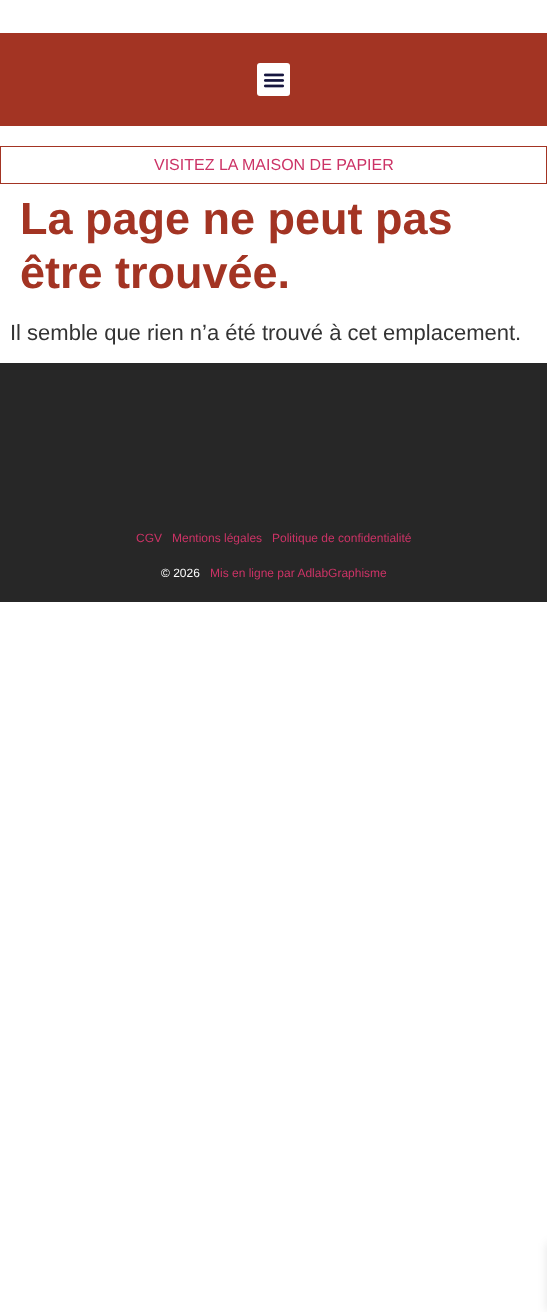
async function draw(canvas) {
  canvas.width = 547;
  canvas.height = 1312;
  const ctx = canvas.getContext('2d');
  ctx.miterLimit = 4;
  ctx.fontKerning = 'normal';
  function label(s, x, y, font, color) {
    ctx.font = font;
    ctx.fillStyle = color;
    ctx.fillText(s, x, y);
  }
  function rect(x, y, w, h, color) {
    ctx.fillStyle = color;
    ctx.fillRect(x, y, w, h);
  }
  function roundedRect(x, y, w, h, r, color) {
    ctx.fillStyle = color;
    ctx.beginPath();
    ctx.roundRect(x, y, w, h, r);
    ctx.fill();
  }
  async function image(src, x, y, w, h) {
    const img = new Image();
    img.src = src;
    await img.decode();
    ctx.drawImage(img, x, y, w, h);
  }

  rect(0, 0, 547, 1312, '#fff');
  rect(0, 33, 547, 93, '#a33423');
  roundedRect(257, 63, 33, 33, 3, '#fff');
  await image('assets/img1.png', 263, 73, 22, 15);
  ctx.strokeStyle = '#a33423';
  ctx.strokeRect(0.5, 146.5, 546, 37);
  label('VISITEZ LA MAISON DE PAPIER', 154, 170, '16px Liberation Sans', '#c36');
  label('La page ne peut pas', 20, 234, 'bold 45px Liberation Sans', '#a33423');
  label('être trouvée.', 20, 288, 'bold 45px Liberation Sans', '#a33423');
  label('Il semble que rien n’a été trouvé à cet emplacement.', 10, 340, '22px Liberation Sans', '#333');
  rect(0, 363, 547, 239, '#272727');
  label('CGV', 136, 542, '12px Liberation Sans', '#c36');
  label('Mentions légales', 172, 542, '12px Liberation Sans', '#c36');
  label('Politique de confidentialité', 272, 542, '12px Liberation Sans', '#c36');
  label('© 2026', 161, 577, '12px Liberation Sans', '#fff');
  label('Mis en ligne par AdlabGraphisme', 210, 577, '12px Liberation Sans', '#c36');
  ctx.fillStyle = '#0000001a';
  ctx.filter = 'blur(5px)';
  ctx.beginPath();
  ctx.rect(547, 1243, 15, 68);
  ctx.fill();
  ctx.filter = 'none';
}

draw(document.querySelector('canvas'));
